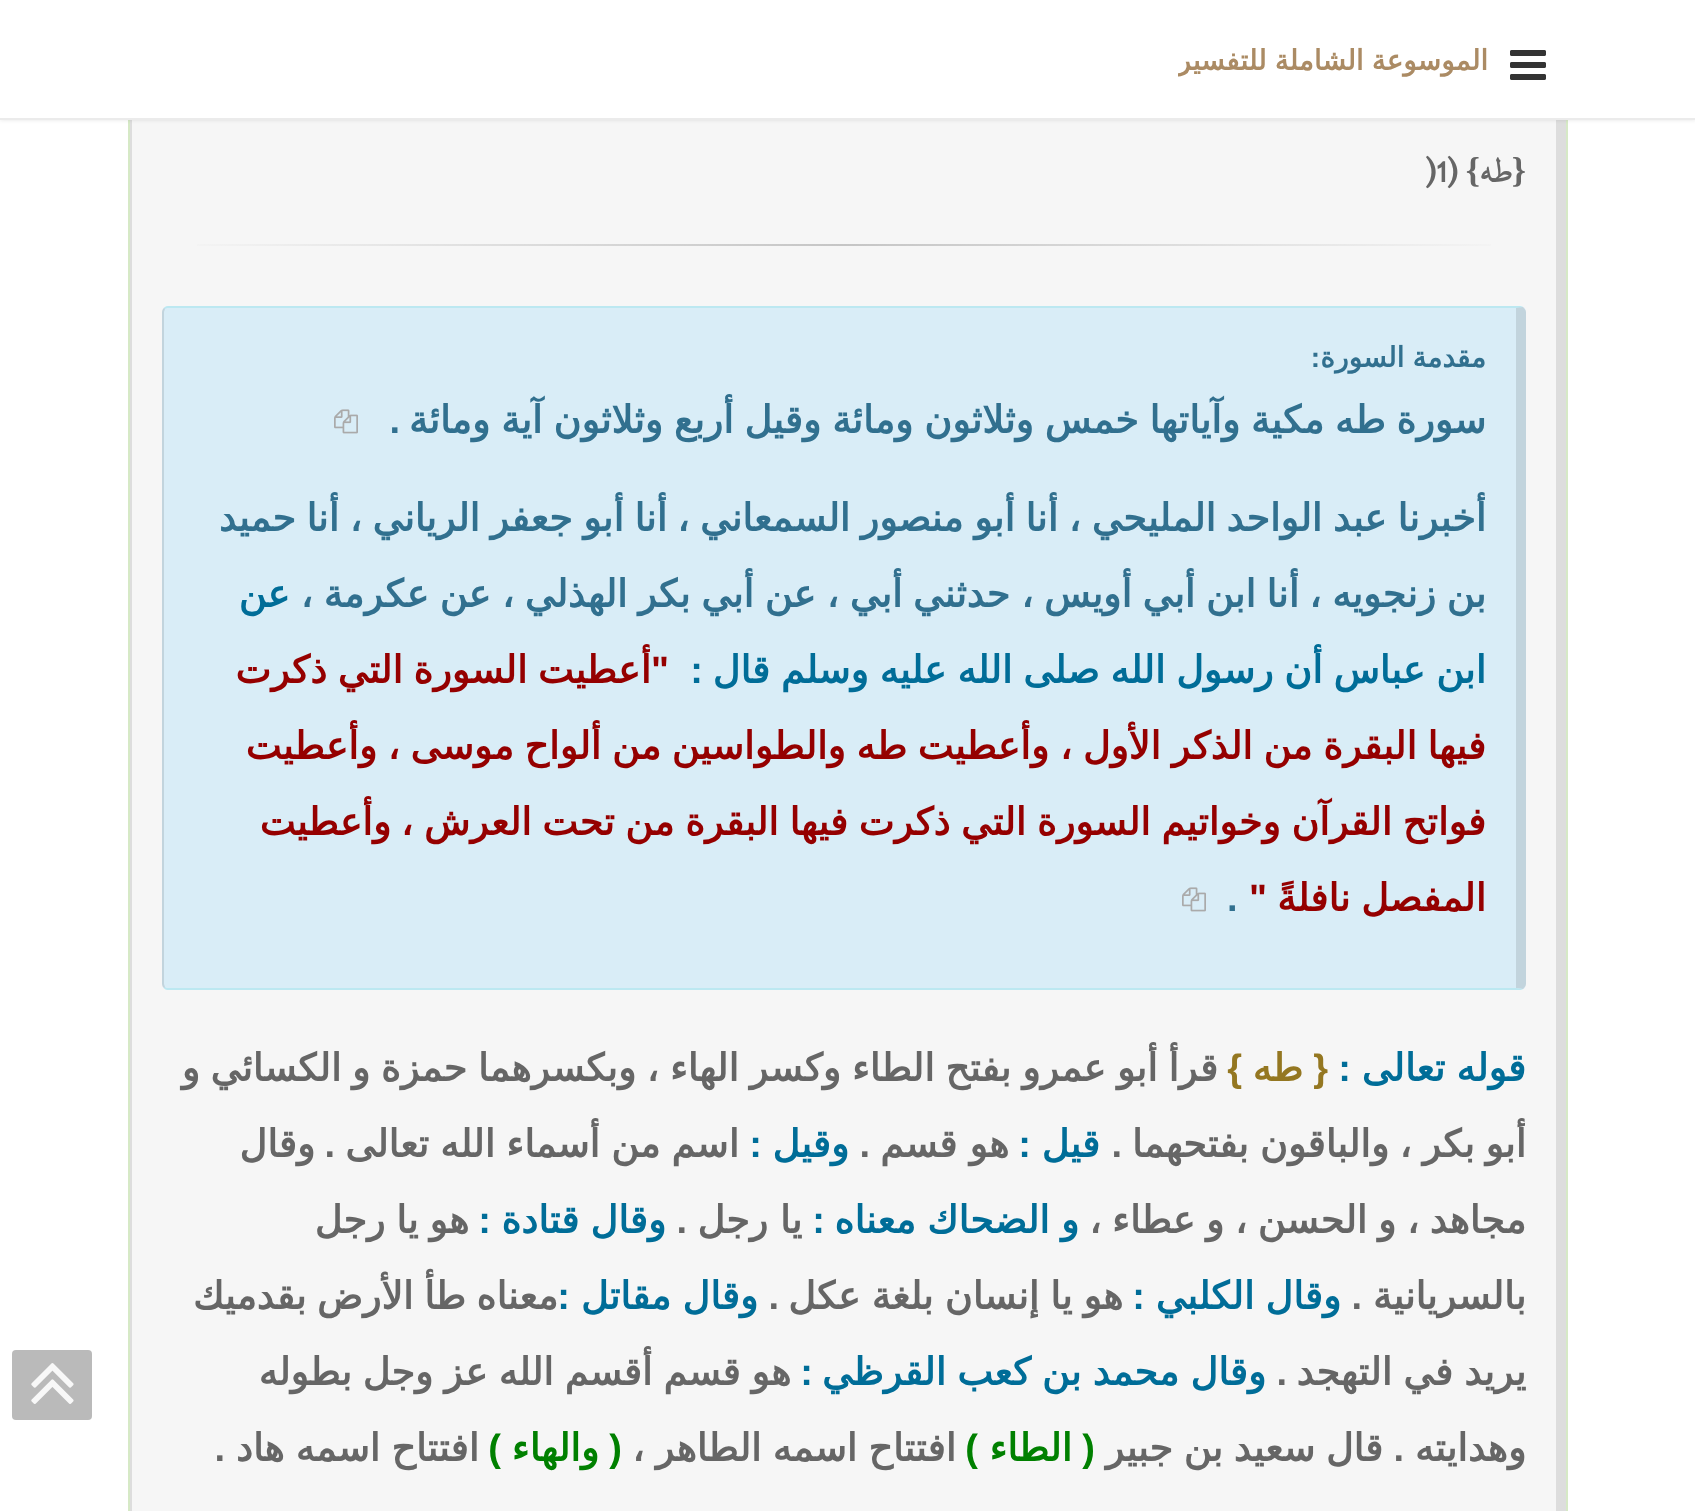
async function draw(canvas) {
  canvas.width = 1695;
  canvas.height = 1511;
  const ctx = canvas.getContext('2d');
  ctx.miterLimit = 4;
  ctx.fontKerning = 'normal';
  function label(s, x, y, font, color) {
    ctx.font = font;
    ctx.fillStyle = color;
    ctx.fillText(s, x, y);
  }
  function rect(x, y, w, h, color) {
    ctx.fillStyle = color;
    ctx.fillRect(x, y, w, h);
  }
  function roundedRect(x, y, w, h, r, color) {
    ctx.fillStyle = color;
    ctx.beginPath();
    ctx.roundRect(x, y, w, h, r);
    ctx.fill();
  }
  async function image(src, x, y, w, h) {
    const img = new Image();
    img.src = src;
    await img.decode();
    ctx.drawImage(img, x, y, w, h);
  }
  let gradient, path;

  rect(0, 0, 1695, 1511, '#fff');
  ctx.strokeStyle = '#d6e9c6';
  ctx.lineWidth = 2;
  ctx.strokeRect(129, 29, 1438, 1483);
  rect(132, 120, 1424, 1391, '#f6f6f6');
  ctx.fillStyle = '#ddd';
  path = new Path2D('M1566 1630V116C1566 114 1564 112 1563 111L1556 112V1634L1563 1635C1564 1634 1566 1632 1566 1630Z');
  ctx.fill(path);
  path = new Path2D('M130 116V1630C130 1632 131 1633 132 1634L133 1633L132 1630V116L133 113L132 112C131 113 130 114 130 116Z');
  ctx.fill(path);
  ctx.fillStyle = '#0000001a';
  ctx.filter = 'blur(2px)';
  ctx.beginPath();
  ctx.rect(0, 0, 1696, 120);
  ctx.fill();
  ctx.filter = 'none';
  rect(0, 0, 1695, 118, '#fff');
  rect(0, 118, 1695, 2, '#ebebeb');
  await image('assets/img1.png', 1510, 50, 36, 30);
  ctx.save();
  ctx.beginPath();
  ctx.rect(1178, 0, 310, 120);
  ctx.clip();
  ctx.wordSpacing = '-1px';
  ctx.direction = 'rtl';
  label('الموسوعة الشاملة للتفسير', 1488, 70, 'bold 28px DejaVu Sans', '#ab8b64');
  ctx.restore();
  ctx.direction = 'rtl';
  label('{', 1526, 182, 'bold 36px Liberation Serif', '#666');
  label('طه', 1512, 182, 'bold 36px "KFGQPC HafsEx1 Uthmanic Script"', '#666');
  label('}', 1480, 182, 'bold 36px Liberation Serif', '#666');
  label('(', 1458, 182, 'bold 36px "KFGQPC HafsEx1 Uthmanic Script"', '#666');
  ctx.direction = 'ltr';
  label(')1', 1424, 182, 'bold 36px "KFGQPC HafsEx1 Uthmanic Script"', '#666');
  gradient = ctx.createLinearGradient(162, 245, 1526, 245);
  gradient.addColorStop(0, '#f6f6f6');
  gradient.addColorStop(0.5, '#c5c5c5');
  gradient.addColorStop(1, '#f6f6f6');
  ctx.fillStyle = gradient;
  ctx.fillRect(197, 244, 1294, 2);
  roundedRect(162, 306, 1364, 684, 6, '#d9edf7');
  ctx.fillStyle = '#bce8f1';
  path = new Path2D('M168 306C166 306 165 307 164 308L165 309C166 308 167 308 168 308H1516L1523 307L1520 306Z');
  ctx.fill(path);
  ctx.fillStyle = '#0000001a';
  path = new Path2D('M1526 984V312C1526 310 1524 308 1523 307L1516 308V988L1523 989C1524 988 1526 986 1526 984Z');
  ctx.fill(path);
  ctx.fillStyle = '#bce8f1';
  path = new Path2D('M168 990H1520L1523 989L1516 988H168C167 988 166 988 165 987L164 988C165 989 166 990 168 990Z');
  ctx.fill(path);
  ctx.fillStyle = '#0000001a';
  path = new Path2D('M162 312V984C162 986 163 987 164 988L165 987L164 984V312L165 309L164 308C163 309 162 310 162 312Z');
  ctx.fill(path);
  ctx.wordSpacing = '-1px';
  ctx.direction = 'rtl';
  label('مقدمة السورة', 1486, 367, 'bold 28px DejaVu Sans', '#31708f');
  ctx.wordSpacing = '0px';
  label(':', 1320, 367, 'bold 28px Liberation Sans', '#31708f');
  ctx.wordSpacing = '-1.25px';
  label('سورة طه مكية وآياتها خمس وثلاثون ومائة وقيل أربع وثلاثون آية ومائة', 1486, 433, 'bold 38px DejaVu Sans', '#31708f');
  ctx.wordSpacing = '0px';
  label('.', 400, 433, 'bold 38px Liberation Sans', '#31708f');
  await image('assets/img2.png', 334, 409, 24, 25);
  ctx.wordSpacing = '-1.5px';
  label('أخبرنا عبد الواحد المليحي ،', 1486, 531, 'bold 38px DejaVu Sans', '#31708f');
  label('أنا أبو منصور السمعاني ،', 1058, 531, 'bold 38px DejaVu Sans', '#31708f');
  label('أنا أبو جعفر الرياني ،', 667, 531, 'bold 38px DejaVu Sans', '#31708f');
  label('أنا حميد', 339, 531, 'bold 38px DejaVu Sans', '#31708f');
  label('بن زنجويه ،', 1486, 607, 'bold 38px DejaVu Sans', '#31708f');
  label('أنا ابن أبي أويس ،', 1299, 607, 'bold 38px DejaVu Sans', '#31708f');
  label('حدثني أبي ،', 1010, 607, 'bold 38px DejaVu Sans', '#31708f');
  label('عن أبي بكر الهذلي ،', 816, 607, 'bold 38px DejaVu Sans', '#31708f');
  label('عن عكرمة ،', 491, 607, 'bold 38px DejaVu Sans', '#31708f');
  ctx.wordSpacing = '0px';
  label('عن', 290, 607, 'bold 38px DejaVu Sans', '#006d98');
  ctx.wordSpacing = '-1.4px';
  label('ابن عباس أن رسول الله صلى الله عليه وسلم قال', 1486, 683, 'bold 38px DejaVu Sans', '#006d98');
  ctx.wordSpacing = '0px';
  ctx.direction = 'ltr';
  label('"', 651, 683, 'bold 38px Liberation Sans', '#950000');
  ctx.wordSpacing = '-1.5px';
  ctx.direction = 'rtl';
  label('أعطيت السورة التي ذكرت', 651, 683, 'bold 38px DejaVu Sans', '#950000');
  ctx.wordSpacing = '0px';
  label(':', 703, 683, 'bold 38px Liberation Sans', '#006d98');
  ctx.wordSpacing = '-1.5px';
  label('فيها البقرة من الذكر الأول ،', 1486, 759, 'bold 38px DejaVu Sans', '#950000');
  label('وأعطيت طه والطواسين من ألواح موسى ،', 1049, 759, 'bold 38px DejaVu Sans', '#950000');
  ctx.wordSpacing = '0px';
  label('وأعطيت', 377, 759, 'bold 38px DejaVu Sans', '#950000');
  ctx.wordSpacing = '-1.5px';
  label('فواتح القرآن وخواتيم السورة التي ذكرت فيها البقرة من تحت العرش ،', 1486, 835, 'bold 38px DejaVu Sans', '#950000');
  ctx.wordSpacing = '0px';
  label('وأعطيت', 391, 835, 'bold 38px DejaVu Sans', '#950000');
  ctx.wordSpacing = '-1.5px';
  label('المفصل نافلةً', 1486, 911, 'bold 38px DejaVu Sans', '#950000');
  ctx.wordSpacing = '0px';
  ctx.direction = 'ltr';
  label('"', 1249, 911, 'bold 38px Liberation Sans', '#950000');
  label('.', 1227, 911, 'bold 38px Liberation Sans', '#31708f');
  await image('assets/img2.png', 1182, 887, 24, 25);
  ctx.wordSpacing = '-1px';
  ctx.direction = 'rtl';
  label('قوله تعالى', 1526, 1081, 'bold 38px DejaVu Sans', '#006d98');
  ctx.wordSpacing = '0px';
  label(':', 1351, 1081, 'bold 38px Liberation Sans', '#006d98');
  label('{', 1328, 1081, 'bold 38px Liberation Sans', '#947721');
  label('طه', 1303, 1081, 'bold 38px DejaVu Sans', '#947721');
  label('}', 1242, 1081, 'bold 38px Liberation Sans', '#947721');
  ctx.wordSpacing = '-1.25px';
  label('قرأ أبو عمرو بفتح الطاء وكسر الهاء ،', 1218, 1081, 'bold 38px DejaVu Sans', '#666');
  ctx.wordSpacing = '-1.5px';
  label('وبكسرهما حمزة و الكسائي و', 636, 1081, 'bold 38px DejaVu Sans', '#666');
  label('أبو بكر ،', 1526, 1157, 'bold 38px DejaVu Sans', '#666');
  ctx.wordSpacing = '-1px';
  label('والباقون بفتحهما', 1389, 1157, 'bold 38px DejaVu Sans', '#666');
  ctx.wordSpacing = '0px';
  label('.', 1122, 1157, 'bold 38px Liberation Sans', '#666');
  label('قيل', 1100, 1157, 'bold 38px DejaVu Sans', '#006d98');
  label(':', 1031, 1157, 'bold 38px Liberation Sans', '#006d98');
  label('هو قسم', 1009, 1157, 'bold 38px DejaVu Sans', '#666');
  label('.', 870, 1157, 'bold 38px Liberation Sans', '#666');
  label('وقيل', 849, 1157, 'bold 38px DejaVu Sans', '#006d98');
  label(':', 762, 1157, 'bold 38px Liberation Sans', '#006d98');
  ctx.wordSpacing = '-1px';
  label('اسم من أسماء الله تعالى', 739, 1157, 'bold 38px DejaVu Sans', '#666');
  ctx.wordSpacing = '0px';
  label('.', 335, 1157, 'bold 38px Liberation Sans', '#666');
  label('وقال', 315, 1157, 'bold 38px DejaVu Sans', '#666');
  ctx.wordSpacing = '-1.5px';
  label('مجاهد ،', 1526, 1233, 'bold 38px DejaVu Sans', '#666');
  label('و الحسن ،', 1396, 1233, 'bold 38px DejaVu Sans', '#666');
  label('و عطاء ،', 1224, 1233, 'bold 38px DejaVu Sans', '#666');
  ctx.wordSpacing = '-1px';
  label('و الضحاك معناه', 1079, 1233, 'bold 38px DejaVu Sans', '#006d98');
  ctx.wordSpacing = '0px';
  label(':', 825, 1233, 'bold 38px Liberation Sans', '#006d98');
  label('يا رجل', 802, 1233, 'bold 38px DejaVu Sans', '#666');
  label('.', 687, 1233, 'bold 38px Liberation Sans', '#666');
  ctx.wordSpacing = '-1px';
  label('وقال قتادة', 666, 1233, 'bold 38px DejaVu Sans', '#006d98');
  ctx.wordSpacing = '0px';
  label(':', 491, 1233, 'bold 38px Liberation Sans', '#006d98');
  ctx.wordSpacing = '-1px';
  label('هو يا رجل', 469, 1233, 'bold 38px DejaVu Sans', '#666');
  ctx.wordSpacing = '0px';
  label('بالسريانية', 1526, 1309, 'bold 38px DejaVu Sans', '#666');
  label('.', 1362, 1309, 'bold 38px Liberation Sans', '#666');
  ctx.wordSpacing = '-1px';
  label('وقال الكلبي', 1341, 1309, 'bold 38px DejaVu Sans', '#006d98');
  ctx.wordSpacing = '0px';
  label(':', 1145, 1309, 'bold 38px Liberation Sans', '#006d98');
  ctx.wordSpacing = '-1px';
  label('هو يا إنسان بلغة عكل', 1123, 1309, 'bold 38px DejaVu Sans', '#666');
  ctx.wordSpacing = '0px';
  label('.', 779, 1309, 'bold 38px Liberation Sans', '#666');
  ctx.wordSpacing = '-1px';
  label('وقال مقاتل', 758, 1309, 'bold 38px DejaVu Sans', '#006d98');
  ctx.wordSpacing = '0px';
  label(':', 570, 1309, 'bold 38px Liberation Sans', '#006d98');
  ctx.wordSpacing = '-1.5px';
  label('معناه طأ الأرض بقدميك', 558, 1309, 'bold 38px DejaVu Sans', '#666');
  ctx.wordSpacing = '-1px';
  label('يريد في التهجد', 1526, 1385, 'bold 38px DejaVu Sans', '#666');
  ctx.wordSpacing = '0px';
  label('.', 1287, 1385, 'bold 38px Liberation Sans', '#666');
  ctx.wordSpacing = '-1px';
  label('وقال محمد بن كعب القرظي', 1266, 1385, 'bold 38px DejaVu Sans', '#006d98');
  ctx.wordSpacing = '0px';
  label(':', 813, 1385, 'bold 38px Liberation Sans', '#006d98');
  ctx.wordSpacing = '-1.25px';
  label('هو قسم أقسم الله عز وجل بطوله', 791, 1385, 'bold 38px DejaVu Sans', '#666');
  ctx.wordSpacing = '0px';
  label('وهدايته', 1526, 1461, 'bold 38px DejaVu Sans', '#666');
  label('.', 1404, 1461, 'bold 38px Liberation Sans', '#666');
  ctx.wordSpacing = '-1.5px';
  label('قال سعيد بن جبير', 1383, 1461, 'bold 38px DejaVu Sans', '#666');
  ctx.wordSpacing = '0px';
  label('(', 1095, 1461, 'bold 38px Liberation Sans', '#008000');
  label('الطاء', 1072, 1461, 'bold 38px DejaVu Sans', '#008000');
  label(')', 978, 1461, 'bold 38px Liberation Sans', '#008000');
  ctx.wordSpacing = '-1px';
  label('افتتاح اسمه الطاهر ،', 956, 1461, 'bold 38px DejaVu Sans', '#666');
  ctx.wordSpacing = '0px';
  label('(', 622, 1461, 'bold 38px Liberation Sans', '#008000');
  label('والهاء', 599, 1461, 'bold 38px DejaVu Sans', '#008000');
  label(')', 501, 1461, 'bold 38px Liberation Sans', '#008000');
  ctx.wordSpacing = '-1px';
  label('افتتاح اسمه هاد', 479, 1461, 'bold 38px DejaVu Sans', '#666');
  ctx.wordSpacing = '0px';
  label('.', 225, 1461, 'bold 38px Liberation Sans', '#666');
  roundedRect(12, 1350, 80, 70, 4, '#bababa');
  await image('assets/img3.png', 31, 1363, 43, 41);
}

draw(document.querySelector('canvas'));
